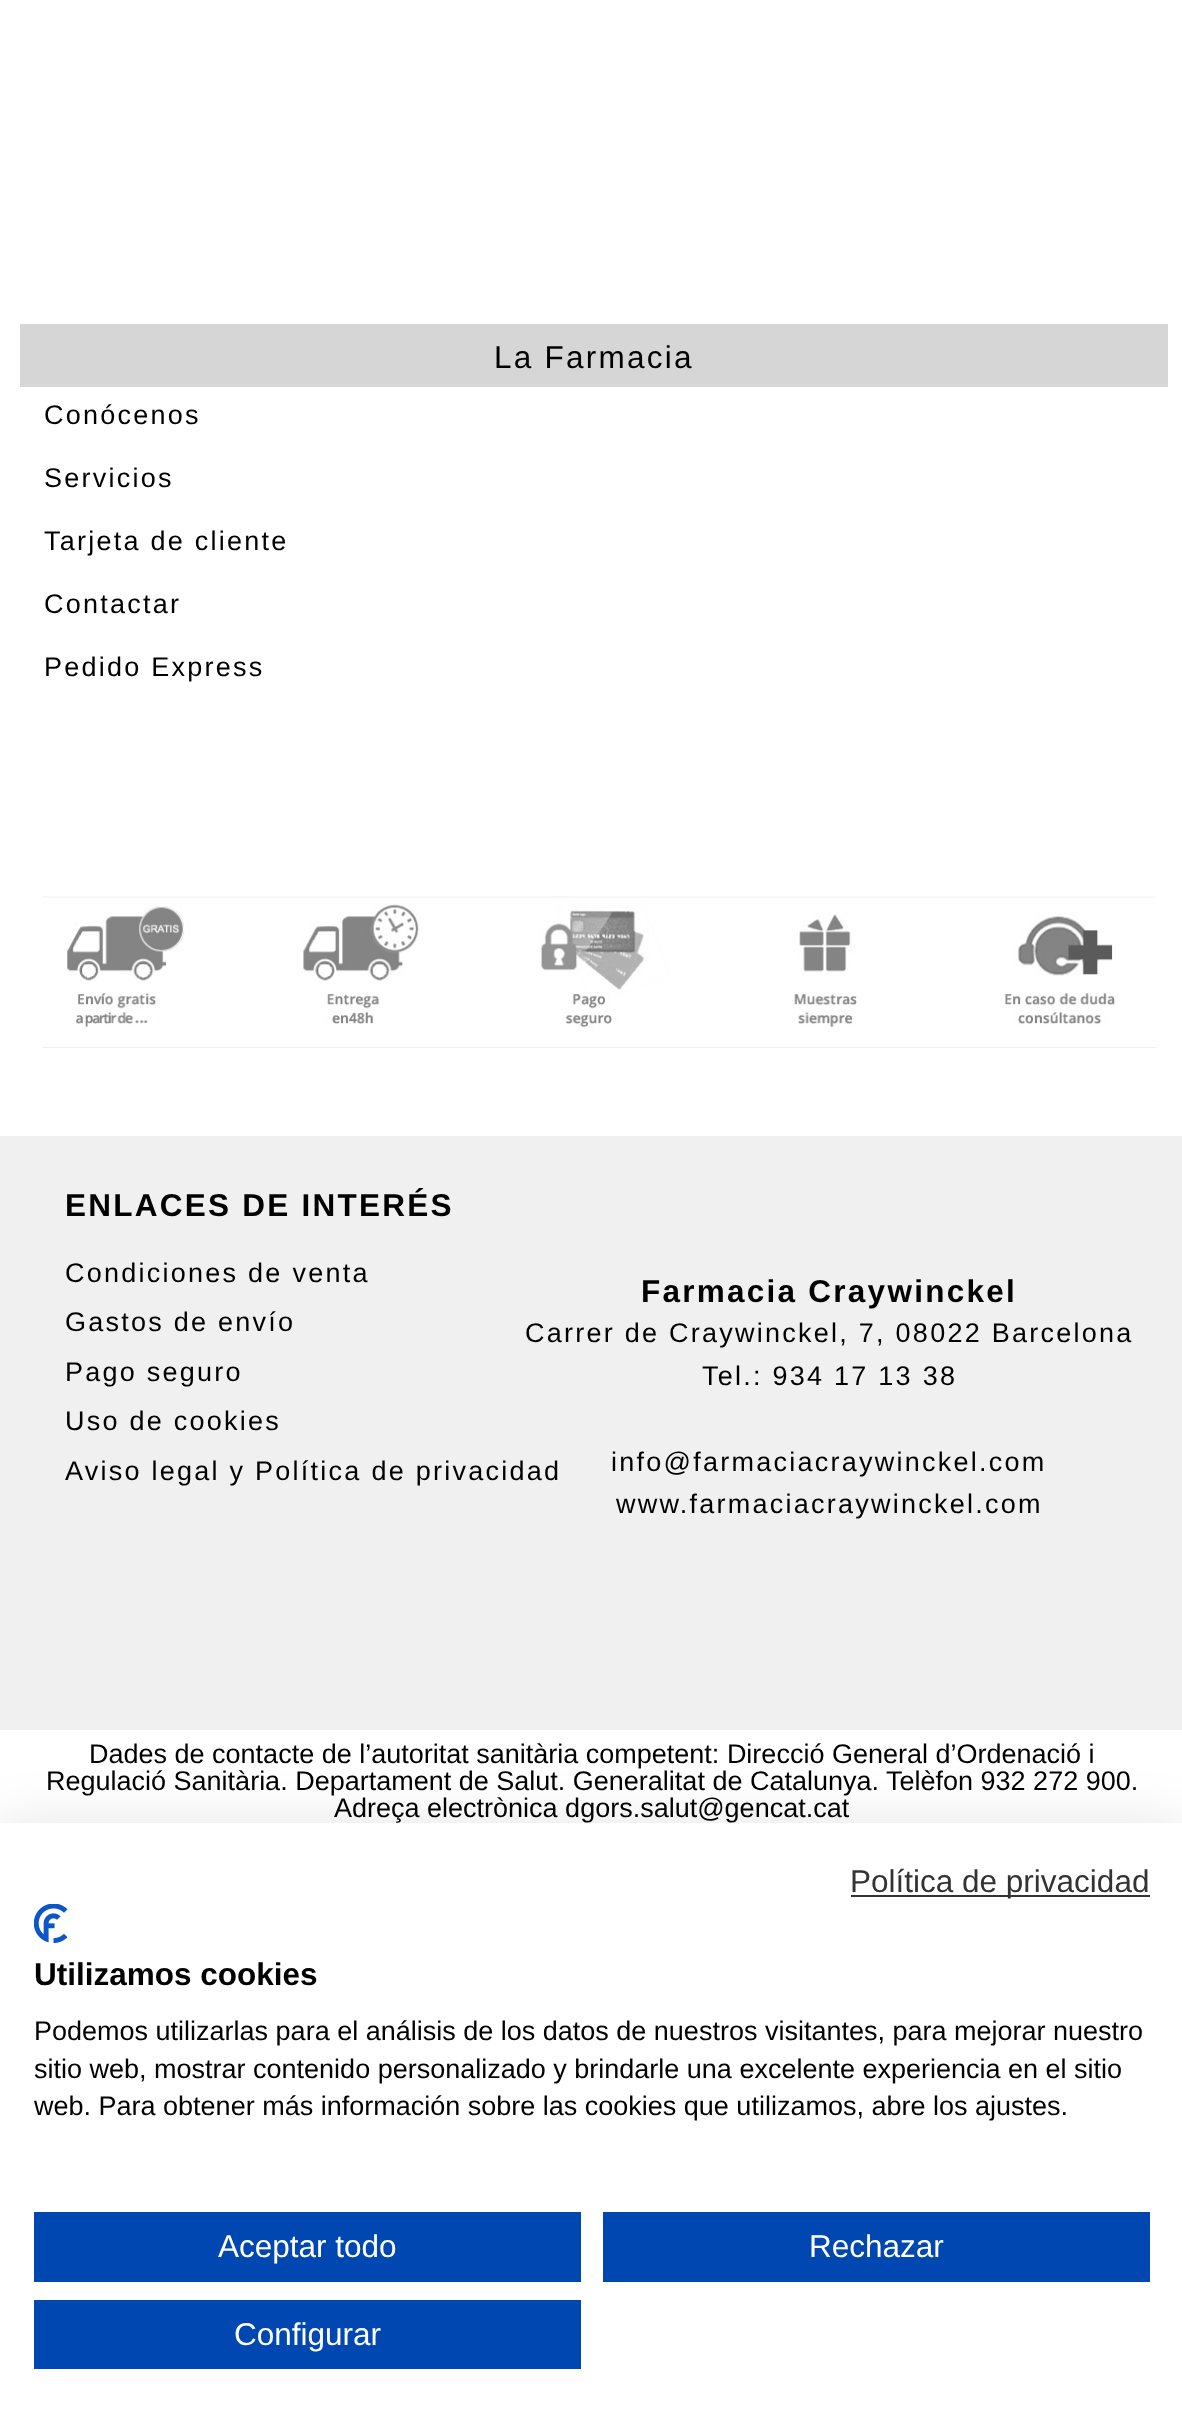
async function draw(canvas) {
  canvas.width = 1182;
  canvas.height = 2429;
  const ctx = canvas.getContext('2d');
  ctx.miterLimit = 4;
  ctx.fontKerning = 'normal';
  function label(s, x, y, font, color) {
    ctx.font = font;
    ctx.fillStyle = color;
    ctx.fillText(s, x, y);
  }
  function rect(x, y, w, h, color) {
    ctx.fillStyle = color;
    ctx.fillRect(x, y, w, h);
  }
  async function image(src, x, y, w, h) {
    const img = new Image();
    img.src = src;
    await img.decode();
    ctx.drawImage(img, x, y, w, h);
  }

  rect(0, 0, 1182, 2429, '#fff');
  rect(20, 324, 1148, 63, '#d6d6d6');
  ctx.letterSpacing = '2.25px';
  label('La Farmacia', 494, 368, '31.5px Liberation Sans', '#000');
  label('Conócenos', 44, 424, '27px Liberation Sans', '#000');
  label('Servicios', 44, 487, '27px Liberation Sans', '#000');
  label('Tarjeta de cliente', 44, 550, '27px Liberation Sans', '#000');
  label('Contactar', 44, 613, '27px Liberation Sans', '#000');
  label('Pedido Express', 44, 676, '27px Liberation Sans', '#000');
  await image('assets/img1.png', 42, 896, 1114, 152);
  rect(0, 1136, 1182, 594, '#f0f0f0');
  label('ENLACES DE INTERÉS', 65, 1216, 'bold 31.5px Liberation Sans', '#000');
  label('Condiciones de venta', 65, 1282, '27px Liberation Sans', '#000');
  label('Gastos de envío', 65, 1331, '27px Liberation Sans', '#000');
  label('Pago seguro', 65, 1381, '27px Liberation Sans', '#000');
  label('Uso de cookies', 65, 1430, '27px Liberation Sans', '#000');
  label('Aviso legal y Política de privacidad', 65, 1480, '27px Liberation Sans', '#000');
  label('Farmacia Craywinckel', 641, 1302, 'bold 31.5px Liberation Sans', '#000');
  label('Carrer de Craywinckel, 7, 08022 Barcelona', 525, 1342, '27px Liberation Sans', '#000');
  label('Tel.: 934 17 13 38', 702, 1385, '27px Liberation Sans', '#000');
  label('info@farmaciacraywinckel.com', 611, 1471, '27px Liberation Sans', '#000');
  label('www.farmaciacraywinckel.com', 616, 1513, '27px Liberation Sans', '#000');
  ctx.letterSpacing = '0px';
  label('Dades de contacte de l’autoritat sanitària competent: Direcció General d’Ordenació i', 89, 1763, '27px Liberation Sans', '#000');
  label('Regulació Sanitària. Departament de Salut. Generalitat de Catalunya. Telèfon 932 272 900.', 46, 1790, '27px Liberation Sans', '#000');
  label('Adreça electrònica dgors.salut@gencat.cat', 334, 1817, '27px Liberation Sans', '#000');
  ctx.fillStyle = '#0000001a';
  ctx.filter = 'blur(27px)';
  ctx.beginPath();
  ctx.rect(0, 1823, 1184, 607);
  ctx.fill();
  ctx.filter = 'none';
  rect(0, 1823, 1182, 606, '#fff');
  rect(851, 1895, 299, 2, '#333');
  label('Política de privacidad', 850, 1892, '31.5px Liberation Sans', '#333');
  await image('assets/img2.png', 34, 1904, 34, 39);
  label('Utilizamos cookies', 34, 1985, 'bold 31.5px Liberation Sans', '#000');
  label('Podemos utilizarlas para el análisis de los datos de nuestros visitantes, para mejorar nuestro', 34, 2040, '27px Liberation Sans', '#000');
  label('sitio web, mostrar contenido personalizado y brindarle una excelente experiencia en el sitio', 34, 2078, '27px Liberation Sans', '#000');
  label('web. Para obtener más información sobre las cookies que utilizamos, abre los ajustes.', 34, 2115, '27px Liberation Sans', '#000');
  rect(34, 2212, 547, 70, '#0047b2');
  label('Aceptar todo', 218, 2257, '31.5px Liberation Sans', '#fff');
  rect(603, 2212, 547, 70, '#0047b2');
  label('Rechazar', 809, 2257, '31.5px Liberation Sans', '#fff');
  rect(34, 2300, 547, 69, '#0047b2');
  label('Configurar', 234, 2345, '31.5px Liberation Sans', '#fff');
}

draw(document.querySelector('canvas'));
